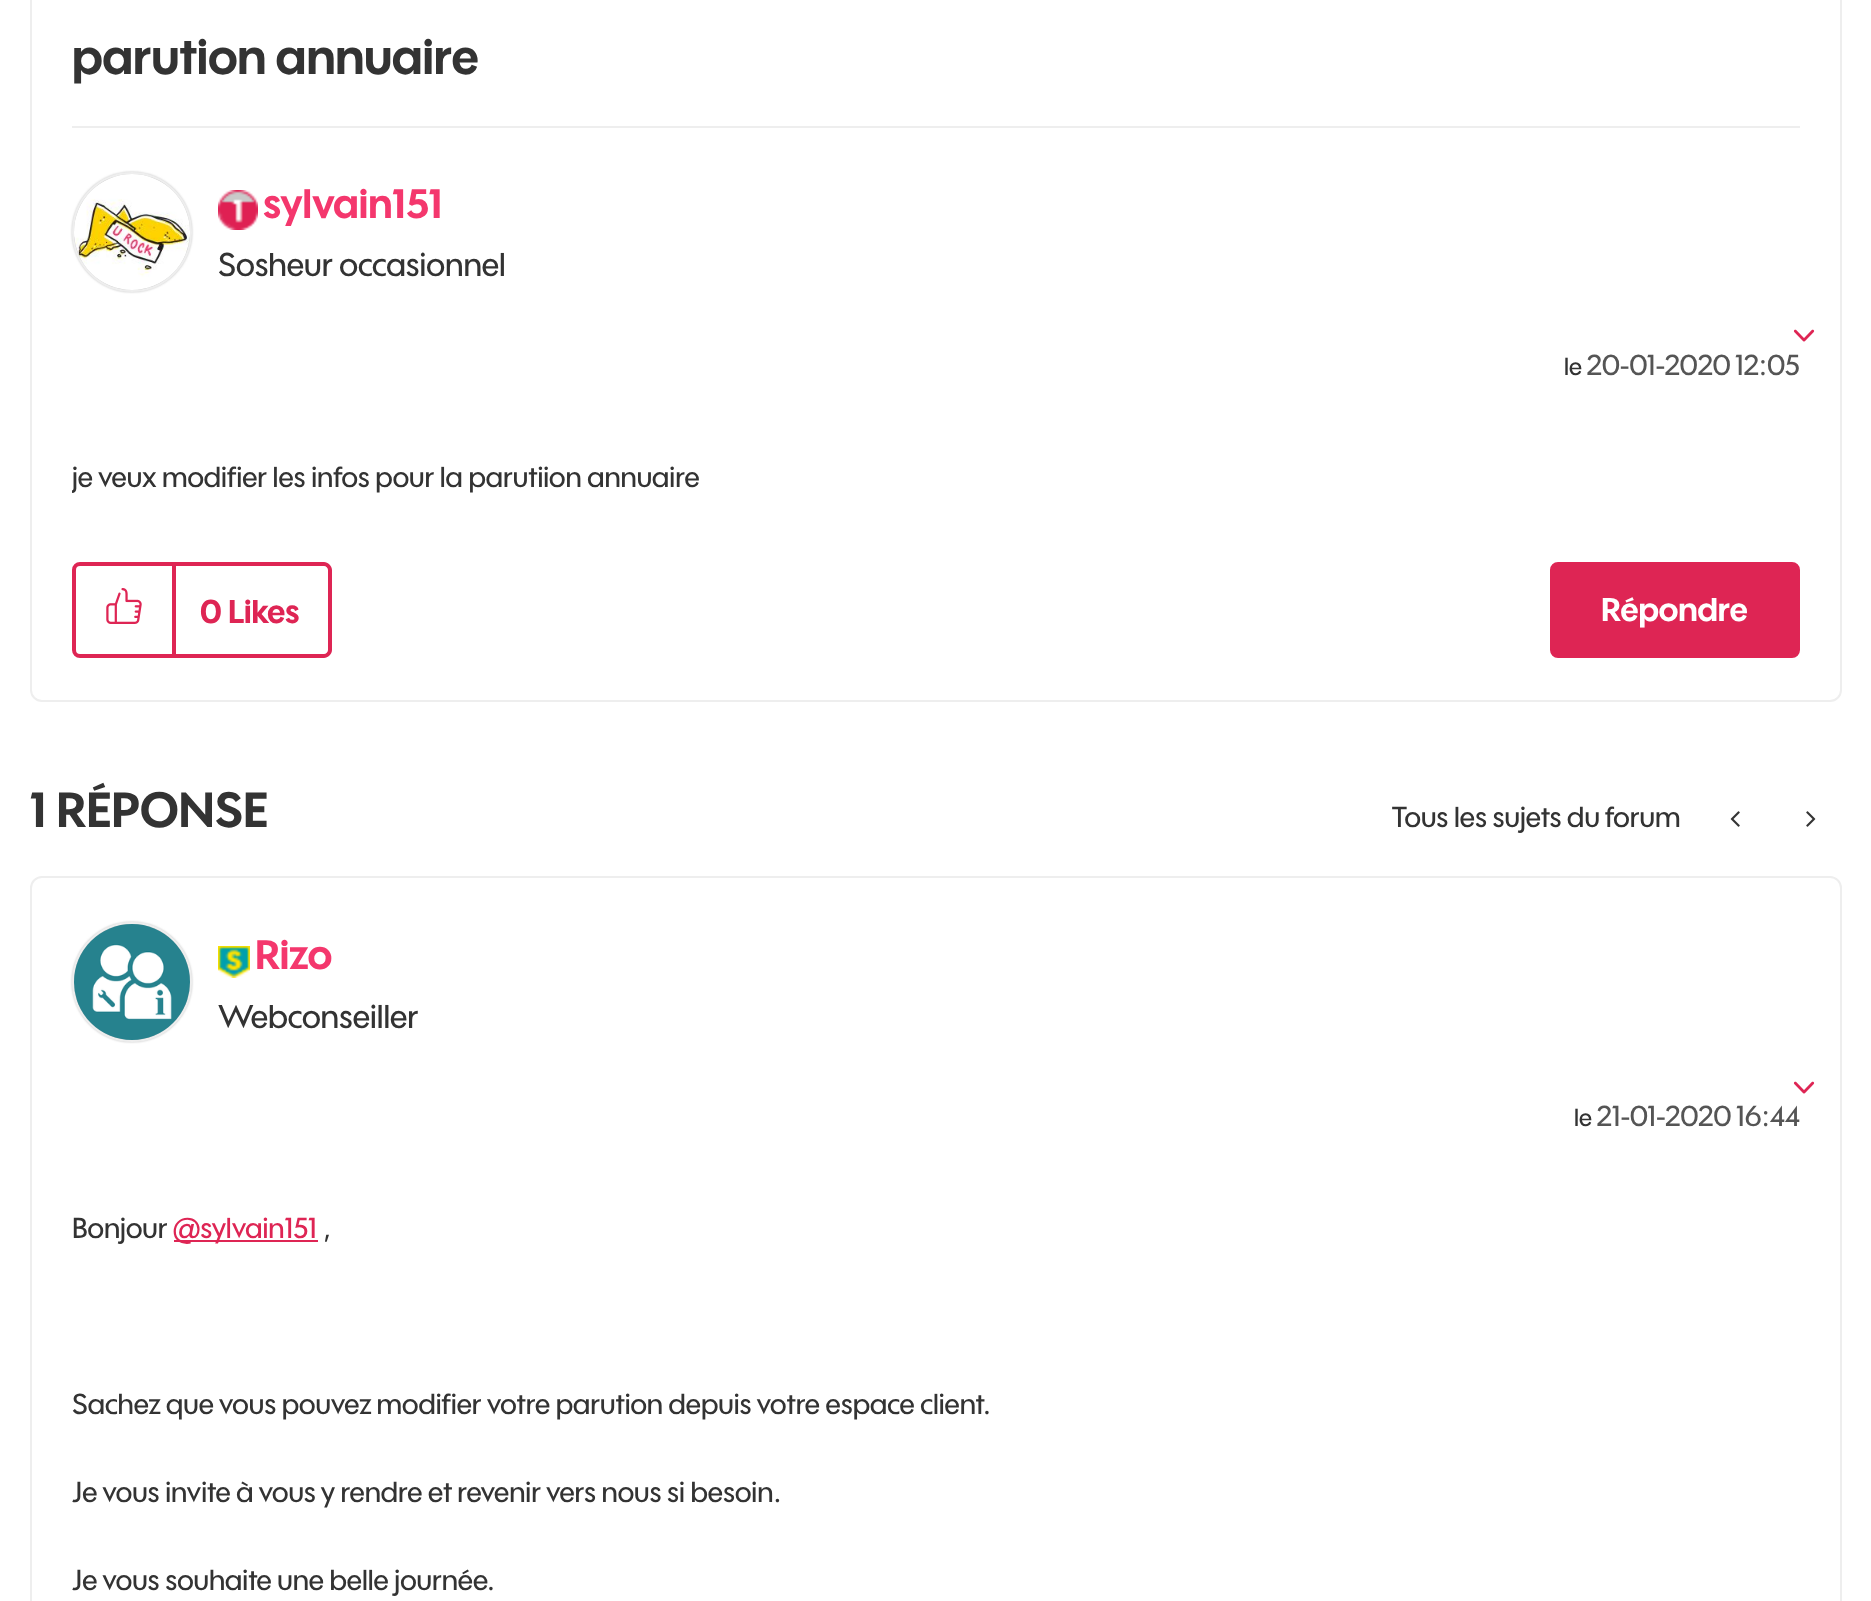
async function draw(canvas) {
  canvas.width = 1871;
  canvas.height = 1601;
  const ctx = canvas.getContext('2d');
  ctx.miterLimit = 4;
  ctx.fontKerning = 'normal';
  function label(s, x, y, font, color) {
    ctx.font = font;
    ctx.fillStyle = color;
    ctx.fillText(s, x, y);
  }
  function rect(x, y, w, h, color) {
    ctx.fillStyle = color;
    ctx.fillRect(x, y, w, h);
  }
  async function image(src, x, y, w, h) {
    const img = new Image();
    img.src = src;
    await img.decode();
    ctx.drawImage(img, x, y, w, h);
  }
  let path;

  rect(0, 0, 1871, 1601, '#fff');
  ctx.beginPath();
  ctx.roundRect(31, -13, 1810, 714, 11);
  ctx.strokeStyle = '#eee';
  ctx.lineWidth = 2;
  ctx.stroke();
  rect(72, 126, 1728, 2, '#eee');
  label('parution annuaire', 72, 74, 'bold 48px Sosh', '#333');
  ctx.fillStyle = '#c4c4c4';
  ctx.filter = 'blur(1px)';
  ctx.beginPath();
  ctx.roundRect(72, 172, 120, 120, 60);
  ctx.fill();
  ctx.filter = 'none';
  ctx.beginPath();
  ctx.arc(132, 232, 59, 0, 2 * Math.PI);
  ctx.stroke();
  await image('assets/img1.png', 74, 174, 116, 116);
  await image('assets/img2.png', 218, 190, 40, 40);
  label('sylvain151', 263, 218, 'bold 40px Sosh', '#f4376d');
  label('Sosheur occasionnel', 218, 276, '500 32px Sosh', '#333');
  await image('assets/img3.png', 1793, 329, 22, 13);
  label('le', 1564, 375, '500 24px Sosh', '#333');
  label('20-01-2020', 1587, 375, '500 28px Sosh', '#555');
  label('12:05', 1735, 375, '500 28px Sosh', '#555');
  ctx.save();
  ctx.beginPath();
  ctx.rect(72, 454, 1728, 48);
  ctx.clip();
  label('je veux modifier les infos pour la parutiion annuaire', 72, 487, '500 28px Sosh', '#333');
  ctx.restore();
  ctx.beginPath();
  ctx.roundRect(74, 564, 100, 92, [6, 0, 0, 6]);
  ctx.strokeStyle = '#de2554';
  ctx.lineWidth = 4;
  ctx.stroke();
  await image('assets/img4.png', 106, 588, 36, 36);
  ctx.fillStyle = '#de2554';
  path = new Path2D('M176 562H324C328 562 332 566 332 570V650C332 654 328 658 324 658H176ZM176 566H324C326 566 328 568 328 570V650C328 652 326 654 324 654H176Z');
  ctx.fill(path, 'evenodd');
  label('0 Likes', 200, 623, 'bold 32px Sosh', '#de2554');
  ctx.beginPath();
  ctx.roundRect(1552, 564, 246, 92, 6);
  ctx.fill();
  ctx.stroke();
  label('Répondre', 1601, 621, 'bold 32px Sosh', '#fff');
  label('1 RÉPONSE', 30, 827, 'bold 48px Sosh', '#333');
  label('Tous les sujets du forum', 1392, 827, '500 28px Sosh', '#333');
  await image('assets/img5.png', 1730, 811, 10, 16);
  await image('assets/img6.png', 1806, 811, 10, 16);
  ctx.beginPath();
  ctx.roundRect(31, 877, 1810, 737, 11);
  ctx.strokeStyle = '#eee';
  ctx.lineWidth = 2;
  ctx.stroke();
  ctx.fillStyle = '#c4c4c4';
  ctx.filter = 'blur(1px)';
  ctx.beginPath();
  ctx.roundRect(72, 922, 120, 120, 60);
  ctx.fill();
  ctx.filter = 'none';
  ctx.beginPath();
  ctx.arc(132, 982, 59, 0, 2 * Math.PI);
  ctx.stroke();
  await image('assets/img7.png', 74, 924, 116, 116);
  await image('assets/img8.png', 218, 946, 32, 32);
  label('Rizo', 255, 969, 'bold 40px Sosh', '#f4376d');
  label('Webconseiller', 218, 1028, '500 32px Sosh', '#333');
  await image('assets/img3.png', 1793, 1081, 22, 13);
  label('le', 1574, 1126, '500 24px Sosh', '#333');
  label('21-01-2020', 1597, 1126, '500 28px Sosh', '#555');
  label('16:44', 1736, 1126, '500 28px Sosh', '#555');
  label('Bonjour', 72, 1238, '500 28px Sosh', '#333');
  rect(174, 1240, 144, 2, '#de2554');
  label('@sylvain151', 173, 1238, '500 28px Sosh', '#de2554');
  label(',', 323, 1238, '500 28px Sosh', '#333');
  label('Sachez que vous pouvez modifier votre parution depuis votre espace client.', 72, 1414, '500 28px Sosh', '#333');
  label('Je vous invite à vous y rendre et revenir vers nous si besoin.', 72, 1502, '500 28px Sosh', '#333');
  label('Je vous souhaite une belle journée.', 72, 1590, '500 28px Sosh', '#333');
}

draw(document.querySelector('canvas'));
